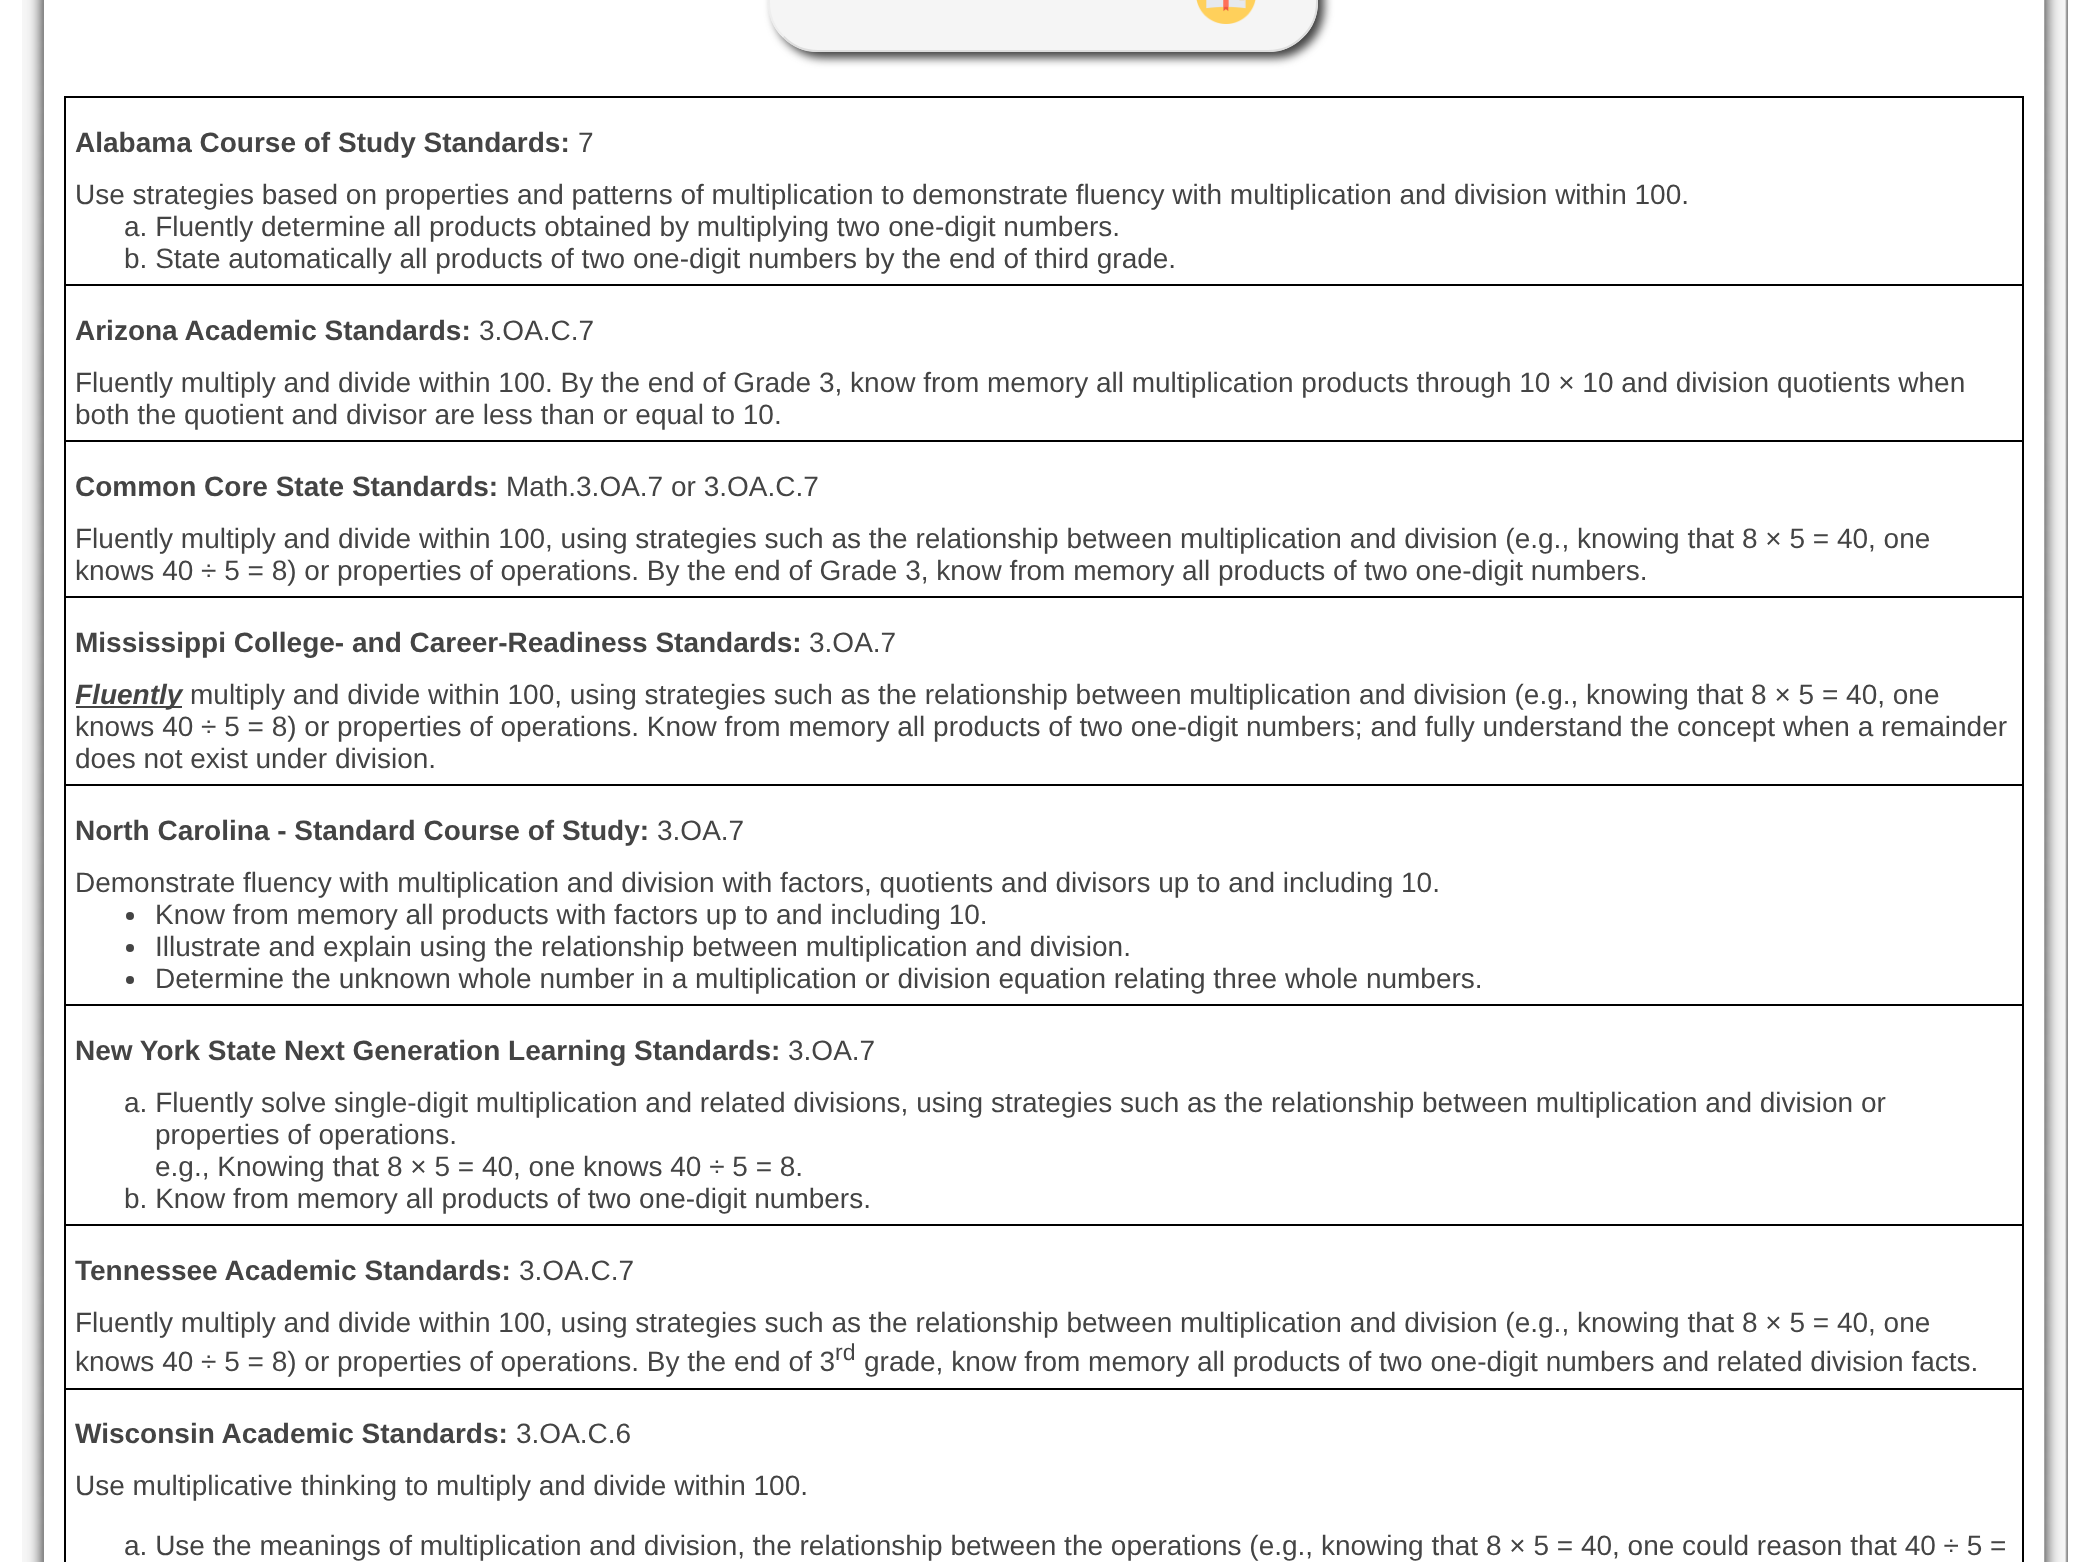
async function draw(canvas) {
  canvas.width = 2086;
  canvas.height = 1562;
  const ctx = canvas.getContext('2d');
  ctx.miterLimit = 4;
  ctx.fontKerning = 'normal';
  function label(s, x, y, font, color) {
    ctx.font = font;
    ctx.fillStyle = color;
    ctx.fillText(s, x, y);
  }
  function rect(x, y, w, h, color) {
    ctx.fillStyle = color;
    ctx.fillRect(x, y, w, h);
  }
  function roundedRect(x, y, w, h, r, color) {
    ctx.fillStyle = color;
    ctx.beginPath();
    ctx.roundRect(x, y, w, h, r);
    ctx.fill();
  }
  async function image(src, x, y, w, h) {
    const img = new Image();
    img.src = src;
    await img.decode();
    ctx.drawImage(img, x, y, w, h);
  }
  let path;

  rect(0, 0, 2086, 1562, '#fff');
  await image('assets/img1.png', 22, 0, 22, 782);
  ctx.fillStyle = '#444';
  ctx.filter = 'blur(5px)';
  ctx.beginPath();
  ctx.roundRect(774, -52, 550, 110, 50);
  ctx.fill();
  ctx.filter = 'none';
  roundedRect(768, -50, 550, 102, 50, '#f5f5f5');
  path = new Path2D('M1302.5-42.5C1312-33.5 1317-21 1317-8V2C1317 15 1312 27.5 1302.5 36.5C1293.5 46 1281 51 1268 51H818C805 51 792.5 46 783.5 36.5');
  ctx.strokeStyle = '#dedede';
  ctx.lineWidth = 2;
  ctx.stroke(path);
  path = new Path2D('M783.5 36.5C774 27.5 769 15 769 2V-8C769-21 774-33.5 783.5-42.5C792.5-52 805-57 818-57H1268C1281-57 1293.5-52 1302.5-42.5');
  ctx.strokeStyle = '#eee';
  ctx.stroke(path);
  await image('assets/img2.png', 1196, 0, 60, 24);
  rect(64, 96, 1960, 2, '#000');
  rect(64, 284, 1960, 2, '#000');
  rect(64, 440, 1960, 2, '#000');
  rect(64, 596, 1960, 2, '#000');
  rect(64, 784, 1960, 2, '#000');
  rect(64, 1004, 1960, 2, '#000');
  rect(64, 1224, 1960, 2, '#000');
  rect(64, 1388, 1960, 2, '#000');
  rect(2022, 1458, 2, 104, '#000');
  rect(2022, 1296, 2, 164, '#000');
  rect(2022, 1076, 2, 222, '#000');
  rect(2022, 856, 2, 222, '#000');
  rect(2022, 668, 2, 190, '#000');
  rect(2022, 512, 2, 158, '#000');
  rect(2022, 356, 2, 158, '#000');
  rect(2022, 168, 2, 190, '#000');
  rect(2022, 96, 2, 74, '#000');
  rect(64, 1458, 2, 104, '#000');
  rect(64, 1296, 2, 164, '#000');
  rect(64, 1076, 2, 222, '#000');
  rect(64, 856, 2, 222, '#000');
  rect(64, 668, 2, 190, '#000');
  rect(64, 512, 2, 158, '#000');
  rect(64, 356, 2, 158, '#000');
  rect(64, 168, 2, 190, '#000');
  rect(64, 96, 2, 74, '#000');
  label('Alabama Course of Study Standards:', 75, 152, 'bold 28px Liberation Sans', '#444');
  label('7', 578, 152, '28px Liberation Sans', '#444');
  label('Use strategies based on properties and patterns of multiplication to demonstrate fluency with multiplication and division within 100.', 75, 204, '28px Liberation Sans', '#444');
  label('a. Fluently determine all products obtained by multiplying two one-digit numbers.', 124, 236, '28px Liberation Sans', '#444');
  label('b. State automatically all products of two one-digit numbers by the end of third grade.', 124, 268, '28px Liberation Sans', '#444');
  label('Arizona Academic Standards:', 75, 340, 'bold 28px Liberation Sans', '#444');
  label('3.OA.C.7', 479, 340, '28px Liberation Sans', '#444');
  label('Fluently multiply and divide within 100. By the end of Grade 3, know from memory all multiplication products through 10 × 10 and division quotients when', 75, 392, '28px Liberation Sans', '#444');
  label('both the quotient and divisor are less than or equal to 10.', 75, 424, '28px Liberation Sans', '#444');
  label('Common Core State Standards:', 75, 496, 'bold 28px Liberation Sans', '#444');
  label('Math.3.OA.7 or 3.OA.C.7', 506, 496, '28px Liberation Sans', '#444');
  label('Fluently multiply and divide within 100, using strategies such as the relationship between multiplication and division (e.g., knowing that 8 × 5 = 40, one', 75, 548, '28px Liberation Sans', '#444');
  label('knows 40 ÷ 5 = 8) or properties of operations. By the end of Grade 3, know from memory all products of two one-digit numbers.', 75, 580, '28px Liberation Sans', '#444');
  label('Mississippi College- and Career-Readiness Standards:', 75, 652, 'bold 28px Liberation Sans', '#444');
  label('3.OA.7', 809, 652, '28px Liberation Sans', '#444');
  rect(76, 706, 106, 2, '#444');
  label('Fluently', 75, 704, 'italic bold 28px Liberation Sans', '#444');
  label('multiply and divide within 100, using strategies such as the relationship between multiplication and division (e.g., knowing that 8 × 5 = 40, one', 190, 704, '28px Liberation Sans', '#444');
  label('knows 40 ÷ 5 = 8) or properties of operations. Know from memory all products of two one-digit numbers; and fully understand the concept when a remainder', 75, 736, '28px Liberation Sans', '#444');
  label('does not exist under division.', 75, 768, '28px Liberation Sans', '#444');
  label('North Carolina - Standard Course of Study:', 75, 840, 'bold 28px Liberation Sans', '#444');
  label('3.OA.7', 657, 840, '28px Liberation Sans', '#444');
  label('Demonstrate fluency with multiplication and division with factors, quotients and divisors up to and including 10.', 75, 892, '28px Liberation Sans', '#444');
  ctx.beginPath();
  ctx.arc(130, 916, 4, 0, 2 * Math.PI);
  ctx.fill();
  label('Know from memory all products with factors up to and including 10.', 155, 924, '28px Liberation Sans', '#444');
  ctx.beginPath();
  ctx.arc(130, 948, 4, 0, 2 * Math.PI);
  ctx.fill();
  label('Illustrate and explain using the relationship between multiplication and division.', 155, 956, '28px Liberation Sans', '#444');
  ctx.beginPath();
  ctx.arc(130, 980, 4, 0, 2 * Math.PI);
  ctx.fill();
  label('Determine the unknown whole number in a multiplication or division equation relating three whole numbers.', 155, 988, '28px Liberation Sans', '#444');
  label('New York State Next Generation Learning Standards:', 75, 1060, 'bold 28px Liberation Sans', '#444');
  label('3.OA.7', 788, 1060, '28px Liberation Sans', '#444');
  label('a. Fluently solve single-digit multiplication and related divisions, using strategies such as the relationship between multiplication and division or', 124, 1112, '28px Liberation Sans', '#444');
  label('properties of operations.', 155, 1144, '28px Liberation Sans', '#444');
  label('e.g., Knowing that 8 × 5 = 40, one knows 40 ÷ 5 = 8.', 155, 1176, '28px Liberation Sans', '#444');
  label('b. Know from memory all products of two one-digit numbers.', 124, 1208, '28px Liberation Sans', '#444');
  label('Tennessee Academic Standards:', 75, 1280, 'bold 28px Liberation Sans', '#444');
  label('3.OA.C.7', 519, 1280, '28px Liberation Sans', '#444');
  label('Fluently multiply and divide within 100, using strategies such as the relationship between multiplication and division (e.g., knowing that 8 × 5 = 40, one', 75, 1332, '28px Liberation Sans', '#444');
  label('knows 40 ÷ 5 = 8) or properties of operations. By the end of 3', 75, 1371, '28px Liberation Sans', '#444');
  label('rd', 835, 1360, '23px Liberation Sans', '#444');
  label('grade, know from memory all products of two one-digit numbers and related division facts.', 864, 1371, '28px Liberation Sans', '#444');
  label('Wisconsin Academic Standards:', 75, 1443, 'bold 28px Liberation Sans', '#444');
  label('3.OA.C.6', 516, 1443, '28px Liberation Sans', '#444');
  label('Use multiplicative thinking to multiply and divide within 100.', 75, 1495, '28px Liberation Sans', '#444');
  label('a. Use the meanings of multiplication and division, the relationship between the operations (e.g., knowing that 8 × 5 = 40, one could reason that 40 ÷ 5 =', 124, 1555, '28px Liberation Sans', '#444');
  await image('assets/img3.png', 2044, 0, 24, 782);
  await image('assets/img4.png', 22, 782, 22, 780);
  await image('assets/img5.png', 2044, 782, 24, 780);
}

draw(document.querySelector('canvas'));
